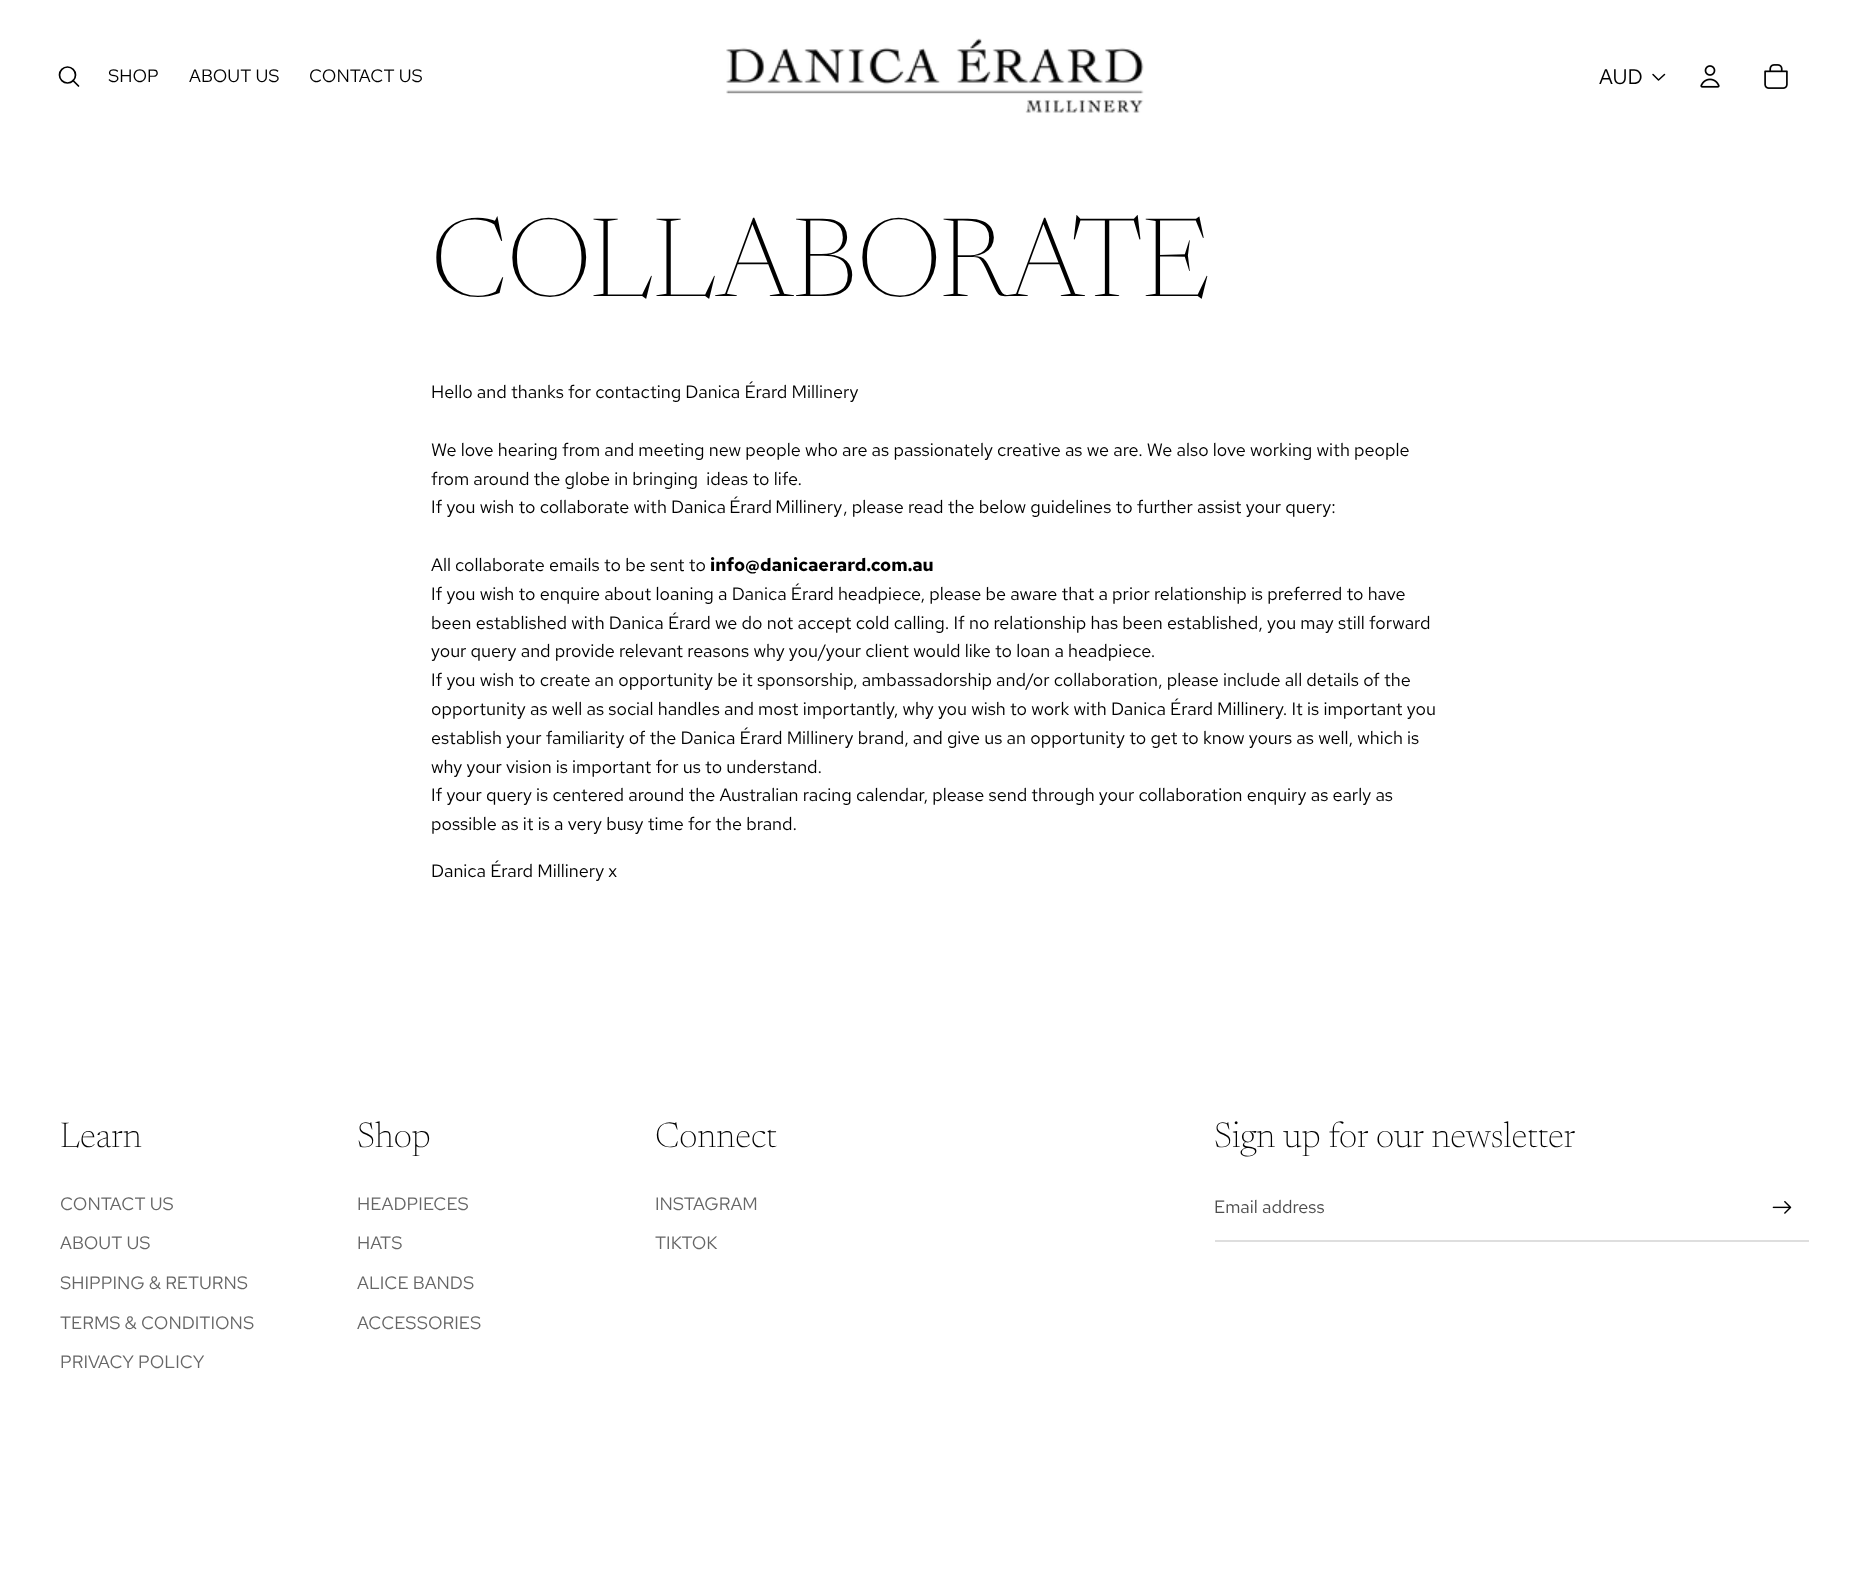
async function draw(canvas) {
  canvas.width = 1868;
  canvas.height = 1587;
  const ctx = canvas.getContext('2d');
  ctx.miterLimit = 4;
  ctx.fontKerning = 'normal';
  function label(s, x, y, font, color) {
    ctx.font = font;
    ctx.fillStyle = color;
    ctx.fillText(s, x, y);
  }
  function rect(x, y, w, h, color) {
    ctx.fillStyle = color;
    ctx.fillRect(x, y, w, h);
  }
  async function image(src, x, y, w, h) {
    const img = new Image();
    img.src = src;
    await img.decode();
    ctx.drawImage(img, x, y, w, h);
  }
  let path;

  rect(0, 0, 1868, 1587, '#fff');
  ctx.beginPath();
  ctx.arc(67.5, 75, 8, 0, 2 * Math.PI);
  ctx.strokeStyle = '#000';
  ctx.lineWidth = 1.7;
  ctx.stroke();
  path = new Path2D('M73 80.5L78.5 86');
  ctx.lineCap = 'round';
  ctx.lineJoin = 'round';
  ctx.stroke(path);
  label('SHOP', 108, 82, '18px Red Hat Text', '#000');
  label('ABOUT US', 189, 82, '18px Red Hat Text', '#000');
  label('CONTACT US', 309, 82, '18px Red Hat Text', '#000');
  await image('assets/img1.png', 726, 38, 418, 75);
  label('AUD', 1599, 84, '21px Red Hat Text', '#000');
  path = new Path2D('M1664.5 74.5L1658.5 80L1653 74.5');
  ctx.lineWidth = 1.5;
  ctx.stroke(path);
  await image('assets/img2.png', 1700, 65, 20, 23);
  await image('assets/img3.png', 1764, 64, 24, 25);
  label('COLLABORATE', 431, 296, '200 108px Newsreader', '#000');
  label('Hello and thanks for contacting Danica Érard Millinery', 431, 398, '18px Red Hat Text', '#000');
  label('We love hearing from and meeting new people who are as passionately creative as we are. We also love working with people', 431, 456, '18px Red Hat Text', '#000');
  label('from around the globe in bringing  ideas to life.', 431, 485, '18px Red Hat Text', '#000');
  label('If you wish to collaborate with', 431, 513, '18px Red Hat Text', '#000');
  ctx.wordSpacing = '-1px';
  label('Danica Érard Millinery', 671, 513, '18px Red Hat Text', '#000');
  ctx.wordSpacing = '0px';
  label(', please read the below guidelines to further assist your query:', 843, 513, '18px Red Hat Text', '#000');
  label('All collaborate emails to be sent to', 431, 571, '18px Red Hat Text', '#000');
  label('info@danicaerard.com.au', 710, 571, 'bold 18px Red Hat Text', '#000');
  label('If you wish to enquire about loaning a Danica Érard headpiece, please be aware that a prior relationship is preferred to have', 431, 600, '18px Red Hat Text', '#000');
  label('been established with Danica Érard we do not accept cold calling. If no relationship has been established, you may still forward', 431, 629, '18px Red Hat Text', '#000');
  label('your query and provide relevant reasons why you/your client would like to loan a headpiece.', 431, 657, '18px Red Hat Text', '#000');
  label('If you wish to create an opportunity be it sponsorship, ambassadorship and/or collaboration, please include all details of the', 431, 686, '18px Red Hat Text', '#000');
  label('opportunity as well as social handles and most importantly, why you wish to work with Danica Érard Millinery. It is important you', 431, 715, '18px Red Hat Text', '#000');
  label('establish your familiarity of the Danica Érard Millinery brand, and give us an opportunity to get to know yours as well, which is', 431, 744, '18px Red Hat Text', '#000');
  label('why your vision is important for us to understand.', 431, 773, '18px Red Hat Text', '#000');
  label('If your query is centered around the Australian racing calendar, please send through your collaboration enquiry as early as', 431, 801, '18px Red Hat Text', '#000');
  label('possible as it is a very busy time for the brand.', 431, 830, '18px Red Hat Text', '#000');
  label('Danica Érard Millinery x', 431, 877, '18px Red Hat Text', '#000');
  label('Learn', 60, 1147, '200 36px "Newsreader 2"', '#000');
  label('CONTACT US', 60, 1210, '18px Red Hat Text', '#666');
  label('ABOUT US', 60, 1249, '18px Red Hat Text', '#666');
  label('SHIPPING & RETURNS', 60, 1289, '18px Red Hat Text', '#666');
  label('TERMS & CONDITIONS', 60, 1329, '18px Red Hat Text', '#666');
  label('PRIVACY POLICY', 60, 1368, '18px Red Hat Text', '#666');
  label('Shop', 357, 1147, '200 36px "Newsreader 2"', '#000');
  label('HEADPIECES', 357, 1210, '18px Red Hat Text', '#666');
  label('HATS', 357, 1249, '18px Red Hat Text', '#666');
  label('ALICE BANDS', 357, 1289, '18px Red Hat Text', '#666');
  label('ACCESSORIES', 357, 1329, '18px Red Hat Text', '#666');
  label('Connect', 655, 1147, '200 36px "Newsreader 2"', '#000');
  label('INSTAGRAM', 655, 1210, '18px Red Hat Text', '#666');
  label('TIKTOK', 655, 1249, '18px Red Hat Text', '#666');
  label('Sign up for our newsletter', 1214, 1147, '200 36px "Newsreader 2"', '#000');
  rect(1215, 1240, 594, 2, '#dedede');
  label('Email address', 1214, 1213, '18px Red Hat Text', '#4d4d4d');
  await image('assets/img4.png', 1772, 1201, 20, 13);
}

draw(document.querySelector('canvas'));
